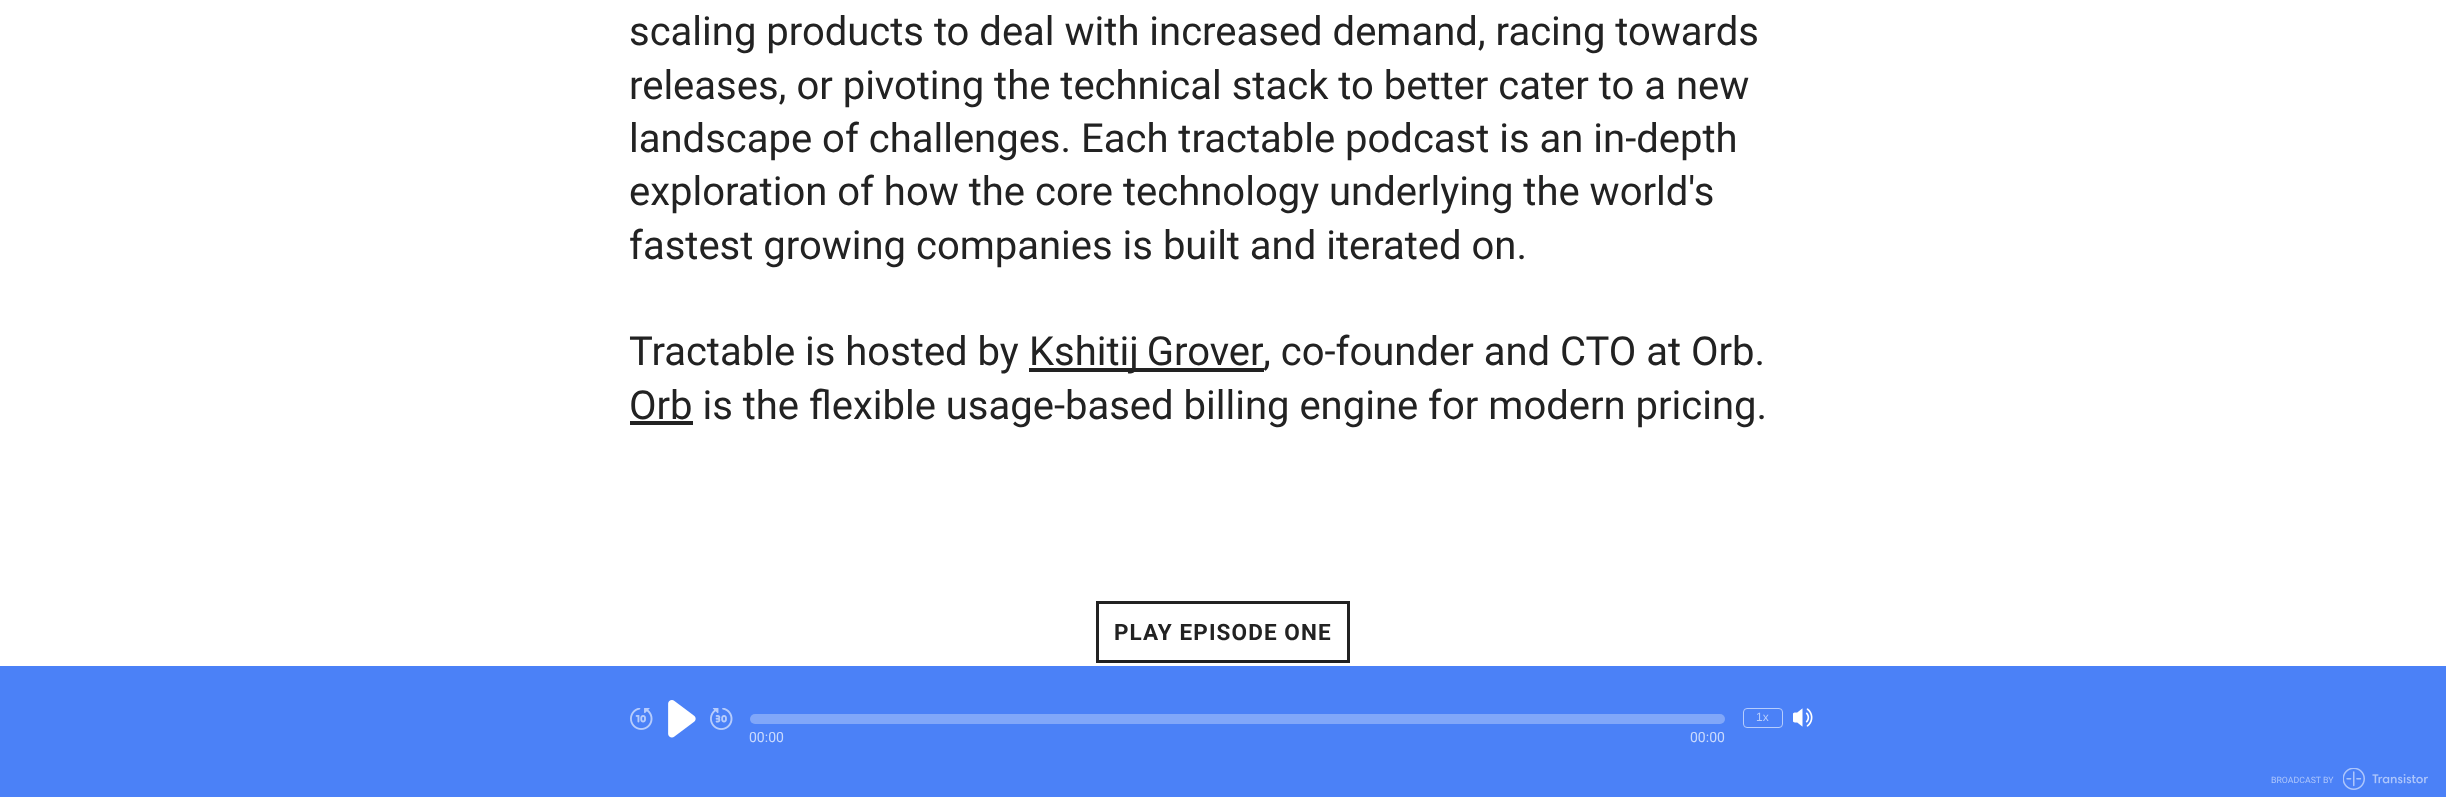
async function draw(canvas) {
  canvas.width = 2446;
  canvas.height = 797;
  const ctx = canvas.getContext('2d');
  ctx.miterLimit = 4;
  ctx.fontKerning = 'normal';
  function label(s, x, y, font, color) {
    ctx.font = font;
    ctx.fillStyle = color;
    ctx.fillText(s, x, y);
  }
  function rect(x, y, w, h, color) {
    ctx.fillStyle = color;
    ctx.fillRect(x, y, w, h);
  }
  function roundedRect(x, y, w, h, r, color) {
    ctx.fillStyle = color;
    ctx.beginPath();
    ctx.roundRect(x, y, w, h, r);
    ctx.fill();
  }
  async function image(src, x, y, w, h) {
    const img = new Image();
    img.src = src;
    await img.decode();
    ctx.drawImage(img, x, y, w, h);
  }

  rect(0, 0, 2446, 797, '#fff');
  label('scaling products to deal with increased demand, racing towards', 629, 45, '40px Roboto', '#222');
  label('releases, or pivoting the technical stack to better cater to a new', 629, 99, '40px Roboto', '#222');
  label('landscape of challenges. Each tractable podcast is an in-depth', 629, 152, '40px Roboto', '#222');
  label('exploration of how the core technology underlying the world\'s', 629, 205, '40px Roboto', '#222');
  label('fastest growing companies is built and iterated on.', 629, 259, '40px Roboto', '#222');
  label('Tractable is hosted by', 629, 365, '40px Roboto', '#222');
  rect(1029, 368, 235, 4, '#222');
  ctx.wordSpacing = '-2px';
  label('Kshitij Grover', 1029, 365, '40px Roboto', '#222');
  ctx.wordSpacing = '0px';
  label(', co-founder and CTO at Orb.', 1263, 365, '40px Roboto', '#222');
  rect(630, 421, 63, 4, '#222');
  label('Orb is the flexible usage-based billing engine for modern pricing.', 629, 419, '40px Roboto', '#222');
  ctx.strokeStyle = '#222';
  ctx.lineWidth = 3;
  ctx.strokeRect(1097.5, 602.5, 251, 59);
  ctx.letterSpacing = '1.1px';
  label('PLAY EPISODE ONE', 1114, 640, 'bold 22.5px Roboto', '#222');
  rect(0, 666, 2446, 131, '#4b81f7');
  await image('assets/img1.png', 630, 708, 23, 22);
  await image('assets/img2.png', 668, 700, 28, 38);
  await image('assets/img3.png', 710, 708, 23, 22);
  ctx.beginPath();
  ctx.roundRect(1743.5, 708.5, 39, 19, 3.5);
  ctx.strokeStyle = '#b7cdfc';
  ctx.lineWidth = 1;
  ctx.stroke();
  ctx.letterSpacing = '0px';
  label('1x', 1756, 721, '12px Liberation Sans', '#b7cdfc');
  await image('assets/img4.png', 1793, 708, 20, 19);
  roundedRect(750, 714, 975, 10, 5, '#81a7f9');
  label('00:00', 749, 742, '14px Roboto', '#c9d9fd');
  label('00:00', 1690, 742, '14px Roboto', '#c9d9fd');
  label('BROADCAST BY', 2271, 783, '8.75px Roboto', '#aec6fb');
  await image('assets/img5.png', 2343, 768, 85, 22);
}

draw(document.querySelector('canvas'));
